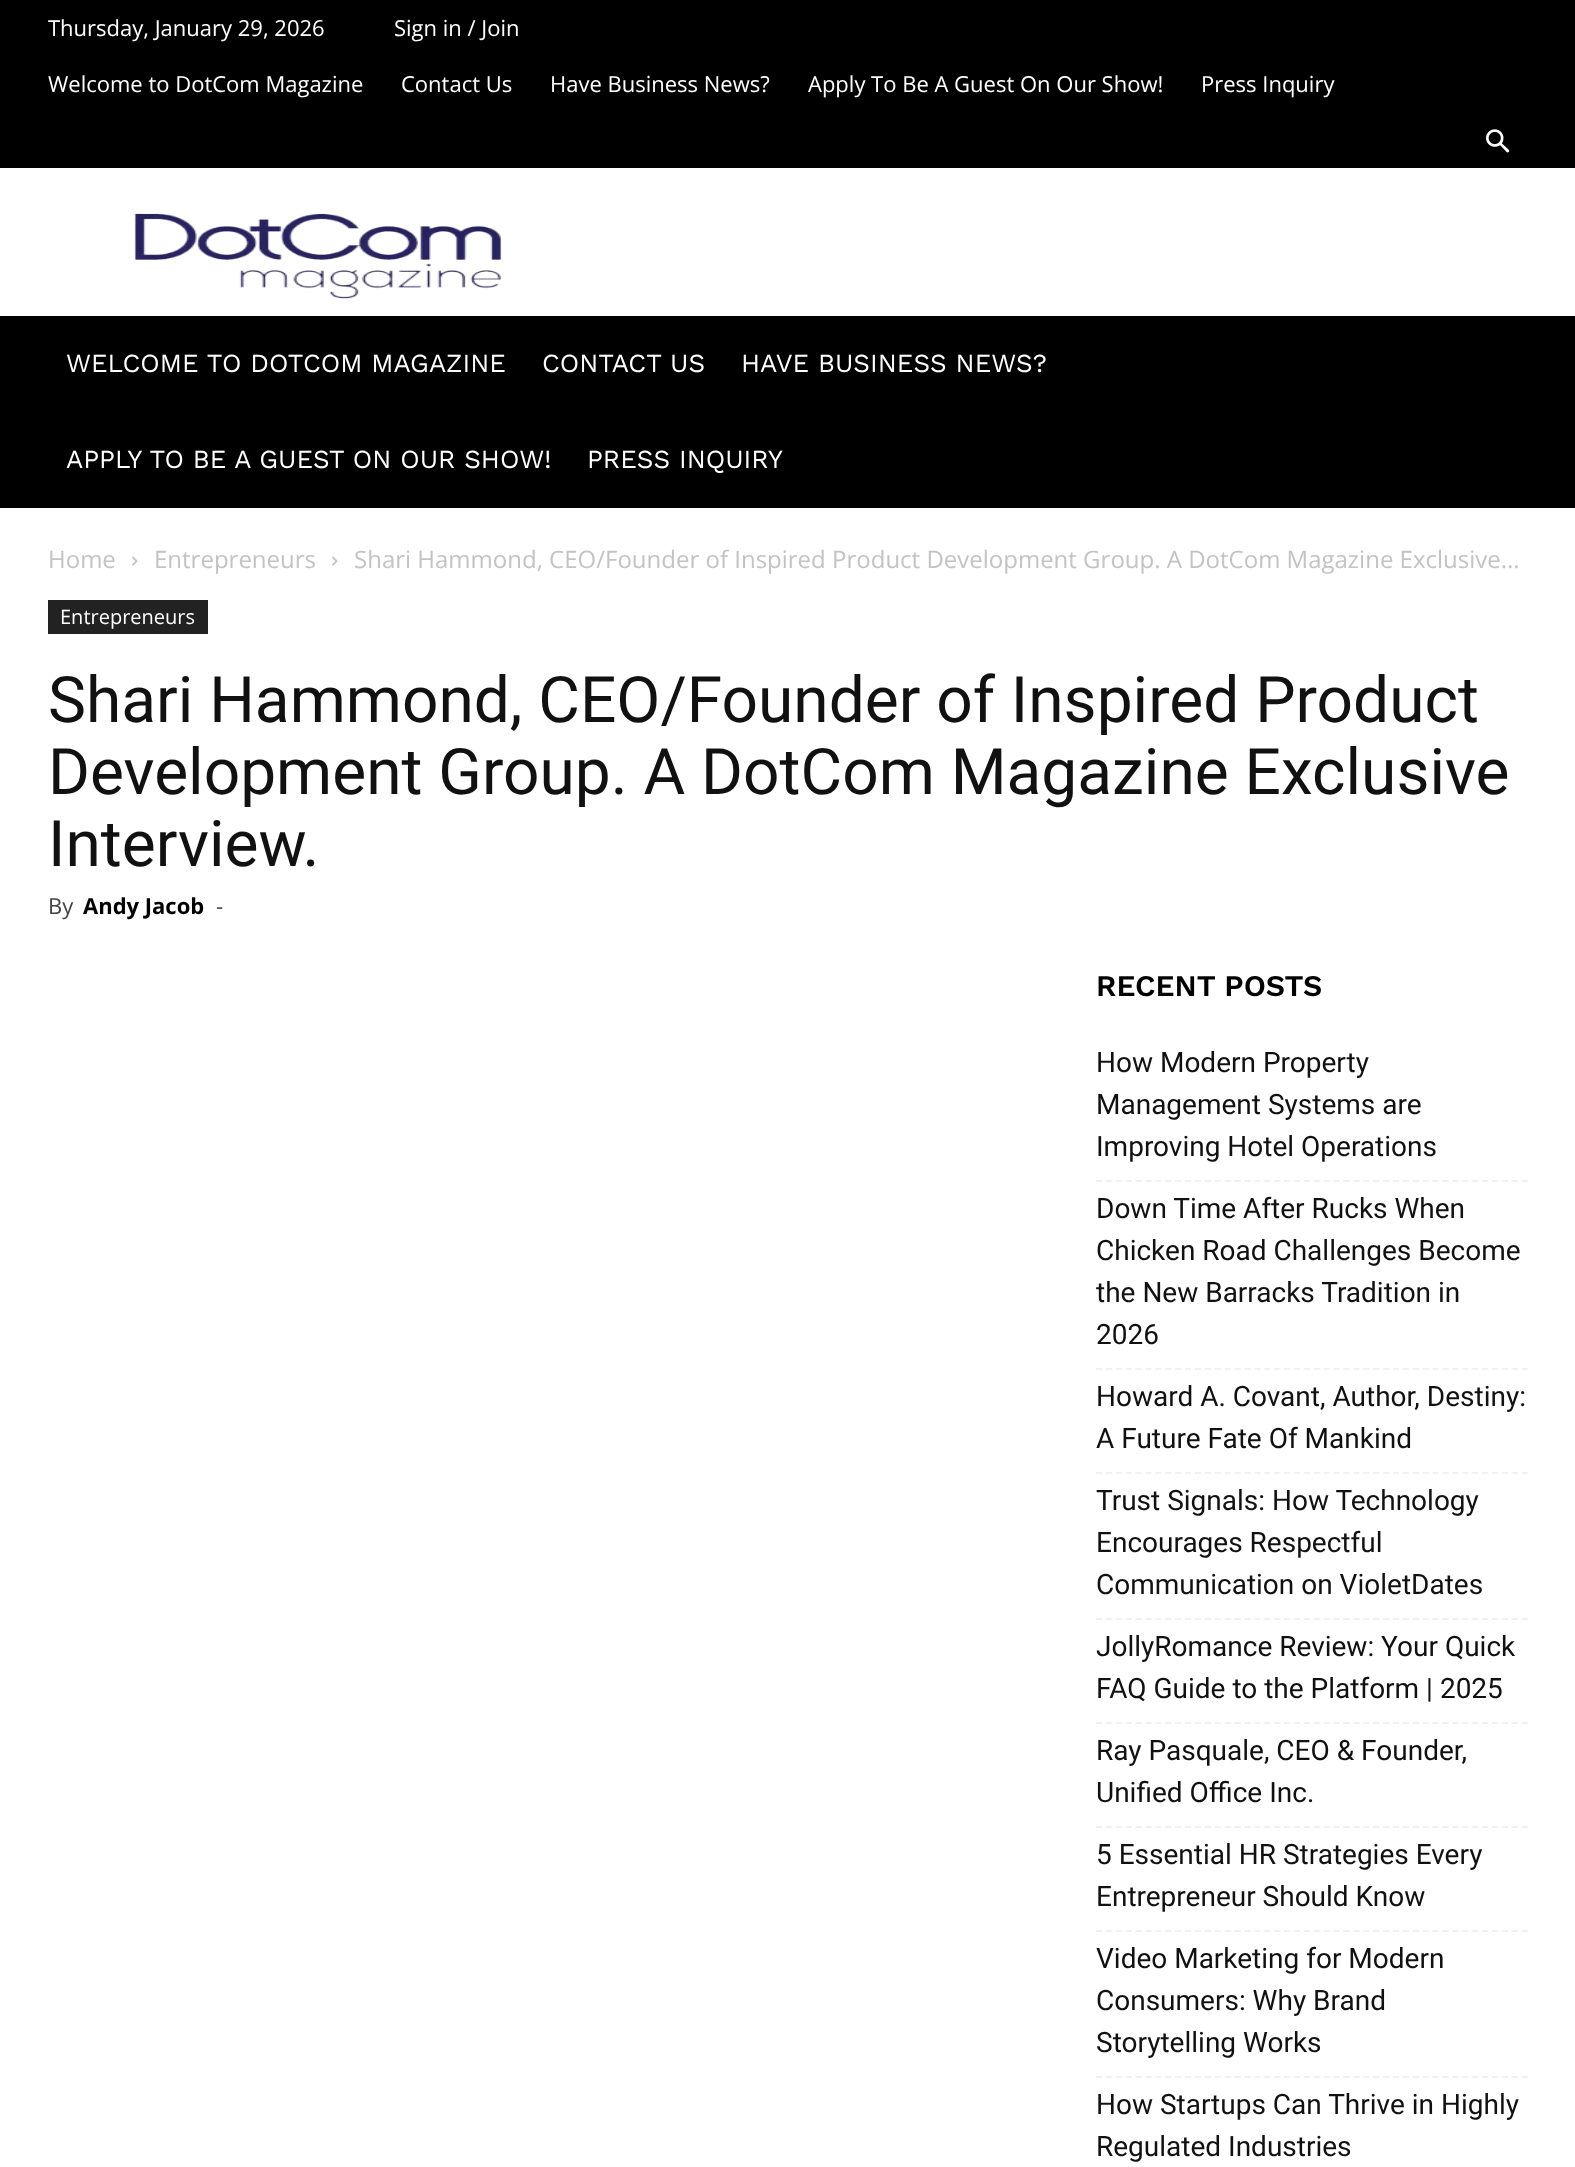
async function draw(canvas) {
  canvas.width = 1575;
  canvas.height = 2167;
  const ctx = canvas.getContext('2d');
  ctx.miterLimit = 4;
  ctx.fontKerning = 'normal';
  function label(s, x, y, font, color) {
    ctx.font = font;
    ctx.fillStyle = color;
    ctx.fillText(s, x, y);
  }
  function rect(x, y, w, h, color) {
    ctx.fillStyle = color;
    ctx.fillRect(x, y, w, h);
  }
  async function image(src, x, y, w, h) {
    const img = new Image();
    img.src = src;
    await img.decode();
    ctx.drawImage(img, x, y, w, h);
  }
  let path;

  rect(0, 0, 1575, 2167, '#fff');
  rect(0, 0, 1575, 168, '#000');
  label('Thursday, January 29, 2026', 48, 36, '22px Open Sans', '#fff');
  label('Sign in / Join', 394, 36, '22px Open Sans', '#fff');
  label('Welcome to DotCom Magazine', 48, 92, '22px Open Sans', '#fff');
  label('Contact Us', 401, 92, '22px Open Sans', '#fff');
  label('Have Business News?', 550, 92, '22px Open Sans', '#fff');
  label('Apply To Be A Guest On Our Show!', 808, 92, '22px Open Sans', '#fff');
  label('Press Inquiry', 1201, 92, '22px Open Sans', '#fff');
  await image('assets/img1.png', 1486, 129, 24, 24);
  await image('assets/img2.png', 134, 213, 368, 86);
  rect(0, 316, 1575, 192, '#000');
  label('WELCOME TO DOTCOM MAGAZINE', 66, 372, '26px Work Sans', '#fff');
  label('CONTACT US', 542, 372, '26px Work Sans', '#fff');
  label('HAVE BUSINESS NEWS?', 741, 372, '26px Work Sans', '#fff');
  label('APPLY TO BE A GUEST ON OUR SHOW!', 66, 468, '26px Work Sans', '#fff');
  label('PRESS INQUIRY', 587, 468, '26px Work Sans', '#fff');
  label('Home', 48, 568, '24px Open Sans', '#c3c3c3');
  await image('assets/img3.png', 132, 556, 6, 10);
  label('Entrepreneurs', 154, 568, '24px Open Sans', '#c3c3c3');
  await image('assets/img3.png', 332, 556, 6, 10);
  label('Shari Hammond, CEO/Founder of Inspired Product Development Group. A DotCom Magazine Exclusive...', 354, 568, '24px Open Sans', '#c3c3c3');
  rect(48, 600, 160, 34, '#222');
  label('Entrepreneurs', 60, 624, '20px Open Sans', '#fff');
  label('Shari Hammond, CEO/Founder of Inspired Product', 48, 722, '64px Roboto', '#111');
  label('Development Group. A DotCom Magazine Exclusive', 48, 794, '64px Roboto', '#111');
  label('Interview.', 48, 866, '64px Roboto', '#111');
  label('By', 48, 914, '22px Open Sans', '#444');
  label('Andy Jacob', 83, 914, 'bold 22px Open Sans', '#000');
  label('-', 216, 914, '22px Open Sans', '#444');
  label('RECENT POSTS', 1096, 996, '600 30px Work Sans', '#000');
  path = new Path2D('M1096 1181H1528');
  ctx.strokeStyle = '#f1f1f1';
  ctx.lineWidth = 2;
  ctx.setLineDash([6, 3.9]);
  ctx.stroke(path);
  label('How Modern Property', 1096, 1072, '28px Roboto', '#111');
  label('Management Systems are', 1096, 1114, '28px Roboto', '#111');
  label('Improving Hotel Operations', 1096, 1156, '28px Roboto', '#111');
  path = new Path2D('M1096 1369H1528');
  ctx.stroke(path);
  label('Down Time After Rucks When', 1096, 1218, '28px Roboto', '#111');
  label('Chicken Road Challenges Become', 1096, 1260, '28px Roboto', '#111');
  label('the New Barracks Tradition in', 1096, 1302, '28px Roboto', '#111');
  label('2026', 1096, 1344, '28px Roboto', '#111');
  path = new Path2D('M1096 1473H1528');
  ctx.stroke(path);
  label('Howard A. Covant, Author, Destiny:', 1096, 1406, '28px Roboto', '#111');
  label('A Future Fate Of Mankind', 1096, 1448, '28px Roboto', '#111');
  path = new Path2D('M1096 1619H1528');
  ctx.stroke(path);
  label('Trust Signals: How Technology', 1096, 1510, '28px Roboto', '#111');
  label('Encourages Respectful', 1096, 1552, '28px Roboto', '#111');
  label('Communication on VioletDates', 1096, 1594, '28px Roboto', '#111');
  path = new Path2D('M1096 1723H1528');
  ctx.stroke(path);
  label('JollyRomance Review: Your Quick', 1096, 1656, '28px Roboto', '#111');
  label('FAQ Guide to the Platform | 2025', 1096, 1698, '28px Roboto', '#111');
  path = new Path2D('M1096 1827H1528');
  ctx.stroke(path);
  label('Ray Pasquale, CEO & Founder,', 1096, 1760, '28px Roboto', '#111');
  label('Unified Office Inc.', 1096, 1802, '28px Roboto', '#111');
  path = new Path2D('M1096 1931H1528');
  ctx.stroke(path);
  label('5 Essential HR Strategies Every', 1096, 1864, '28px Roboto', '#111');
  label('Entrepreneur Should Know', 1096, 1906, '28px Roboto', '#111');
  path = new Path2D('M1096 2077H1528');
  ctx.stroke(path);
  label('Video Marketing for Modern', 1096, 1968, '28px Roboto', '#111');
  label('Consumers: Why Brand', 1096, 2010, '28px Roboto', '#111');
  label('Storytelling Works', 1096, 2052, '28px Roboto', '#111');
  label('How Startups Can Thrive in Highly', 1096, 2114, '28px Roboto', '#111');
  label('Regulated Industries', 1096, 2156, '28px Roboto', '#111');
}

draw(document.querySelector('canvas'));
